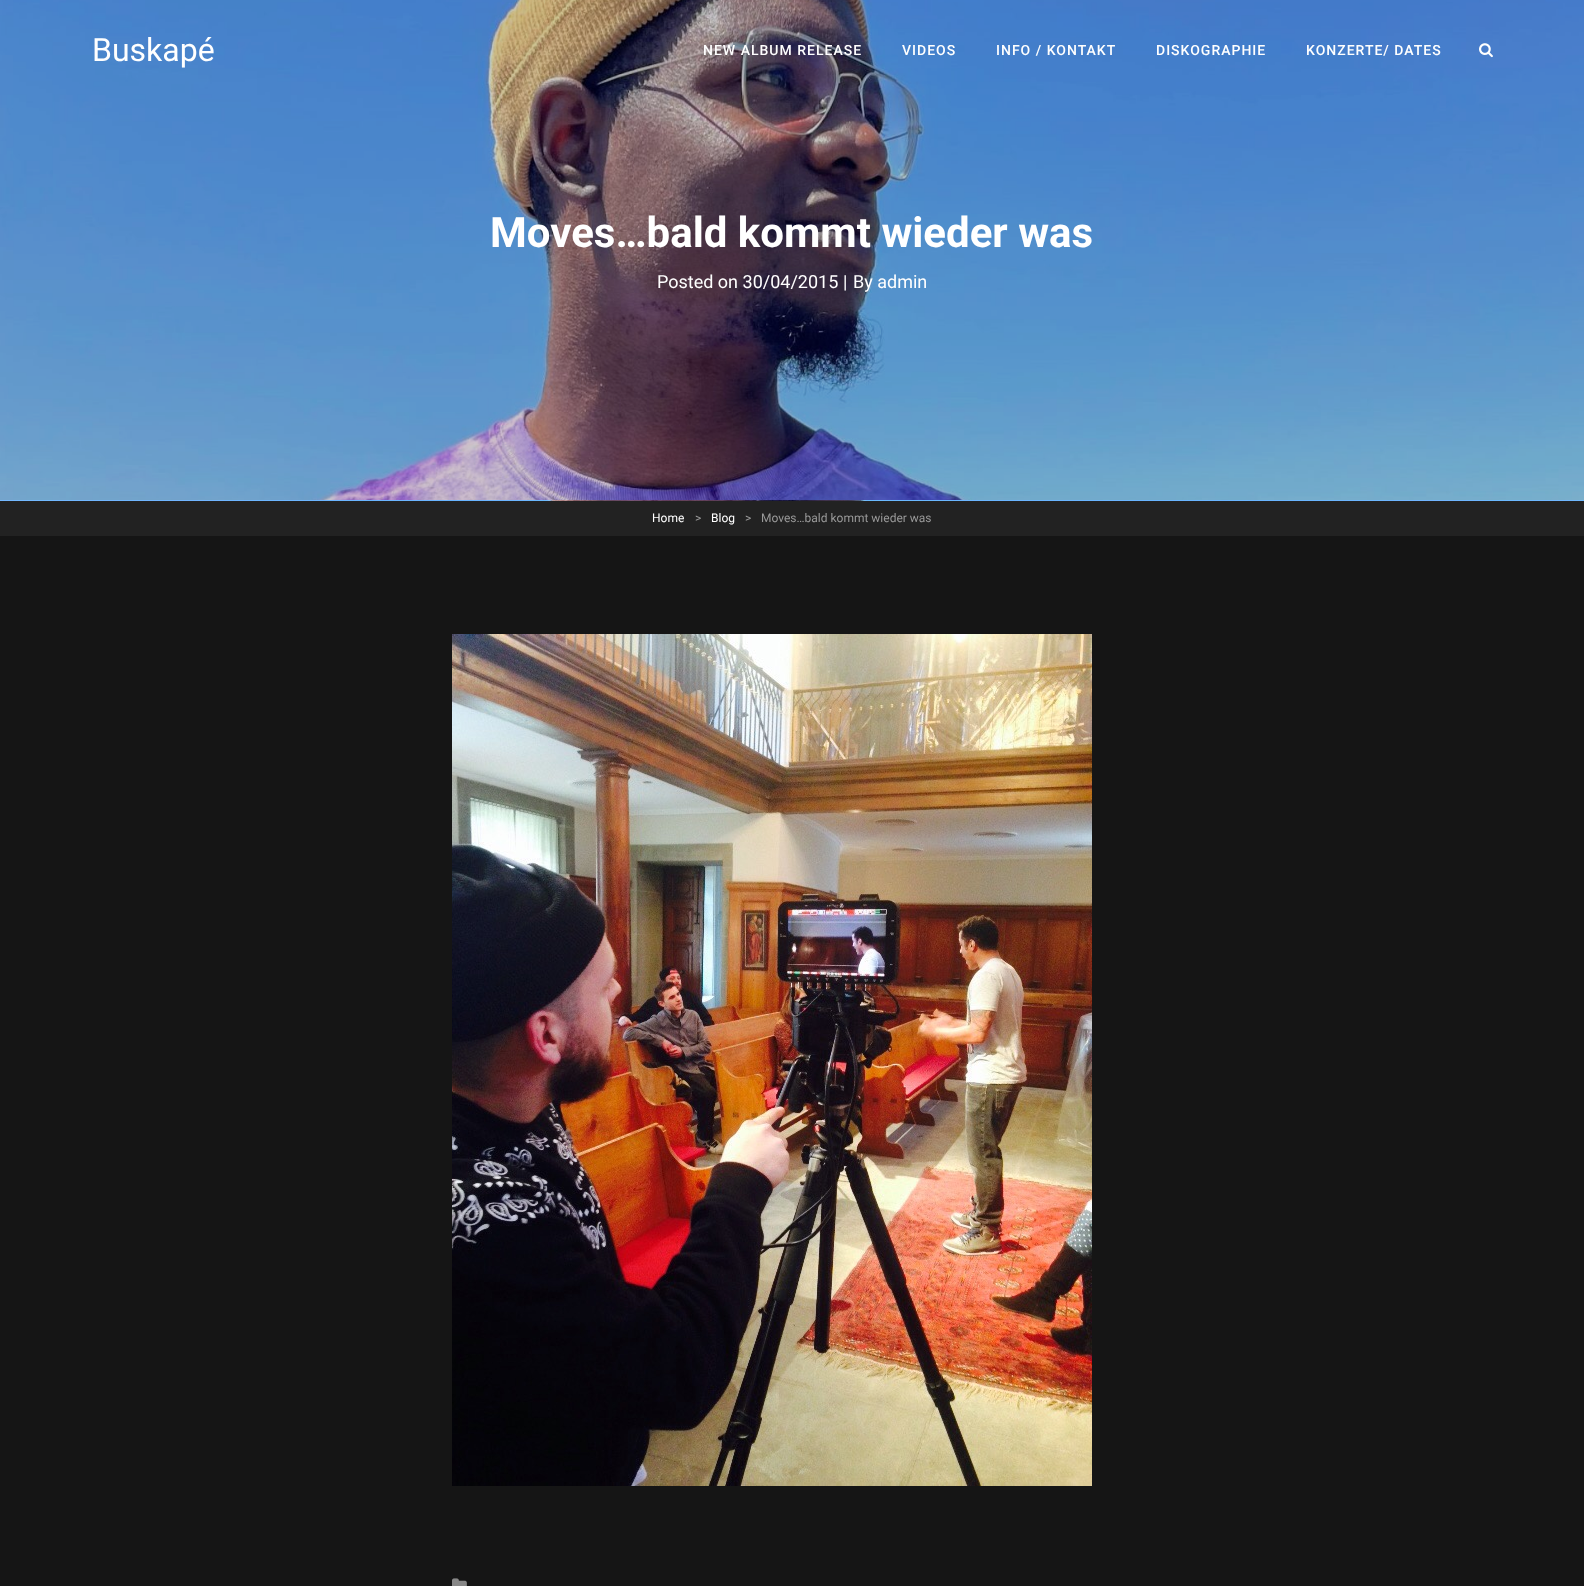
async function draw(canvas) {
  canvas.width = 1584;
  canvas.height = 1586;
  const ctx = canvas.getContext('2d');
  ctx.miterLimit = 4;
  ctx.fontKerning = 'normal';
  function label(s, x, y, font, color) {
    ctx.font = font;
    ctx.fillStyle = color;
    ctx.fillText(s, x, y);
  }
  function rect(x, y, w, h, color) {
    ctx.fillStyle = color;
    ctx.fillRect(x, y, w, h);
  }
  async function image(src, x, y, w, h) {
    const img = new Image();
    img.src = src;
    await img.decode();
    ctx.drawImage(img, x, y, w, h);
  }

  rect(0, 0, 1584, 1586, '#151515');
  await image('assets/img2.png', 0, 0, 1584, 500);
  label('Buskapé', 92, 61, '32px Roboto', '#fff');
  ctx.letterSpacing = '1px';
  label('NEW ALBUM RELEASE', 703, 55, '500 14px Roboto', '#fff');
  label('VIDEOS', 902, 55, '500 14px Roboto', '#fff');
  label('INFO / KONTAKT', 996, 55, '500 14px Roboto', '#fff');
  label('DISKOGRAPHIE', 1156, 55, '500 14px Roboto', '#fff');
  label('KONZERTE/ DATES', 1306, 55, '500 14px Roboto', '#fff');
  await image('assets/img1.png', 1479, 43, 14, 15);
  ctx.letterSpacing = '0px';
  label('Moves…bald kommt wieder was', 490, 247, 'bold 42px Roboto', '#fff');
  label('Posted on 30/04/2015', 657, 288, '18px Roboto', '#fff');
  label('|', 843, 288, '18px Roboto', '#fff');
  label('By admin', 853, 288, '18px Roboto', '#fff');
  await image('assets/img3.png', 0, 500, 1584, 1);
  rect(0, 501, 1584, 35, '#222');
  label('Home', 652, 522, '12px Roboto', '#fff');
  label('>', 695, 522, '12px Roboto', '#999');
  label('Blog', 711, 522, '12px Roboto', '#fff');
  label('>', 745, 522, '12px Roboto', '#999');
  label('Moves…bald kommt wieder was', 761, 522, '12px Roboto', '#999');
  await image('assets/img4.png', 452, 634, 640, 852);
  await image('assets/img5.png', 452, 1578, 15, 8);
}

draw(document.querySelector('canvas'));
